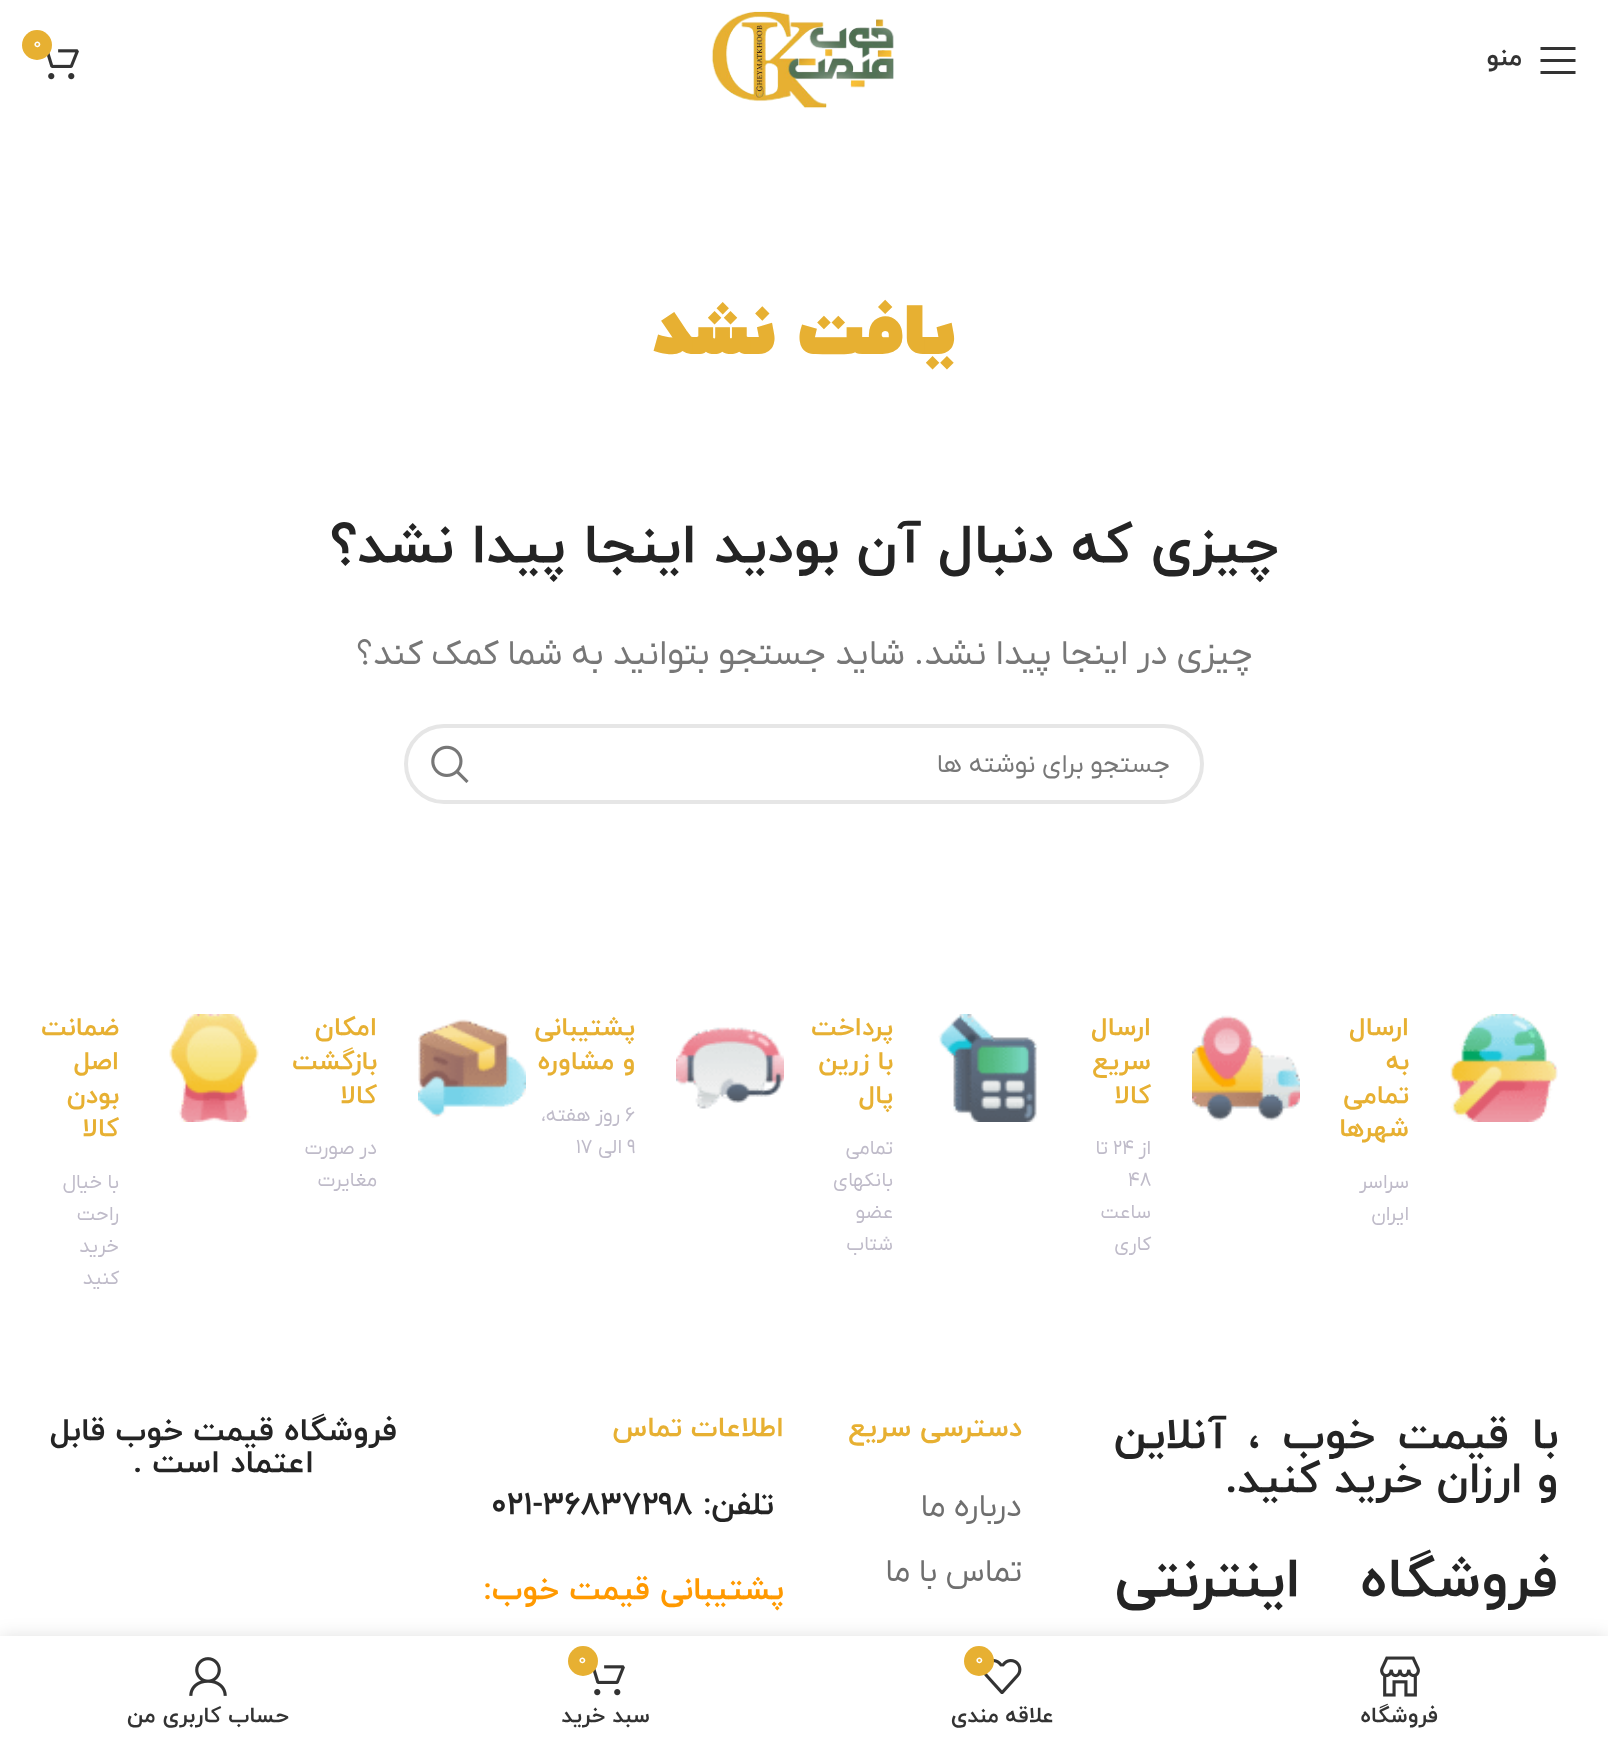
async function draw(canvas) {
  canvas.width = 1608;
  canvas.height = 1746;
  const ctx = canvas.getContext('2d');
  ctx.miterLimit = 4;
  ctx.fontKerning = 'normal';
  function label(s, x, y, font, color) {
    ctx.font = font;
    ctx.fillStyle = color;
    ctx.fillText(s, x, y);
  }
  function rect(x, y, w, h, color) {
    ctx.fillStyle = color;
    ctx.fillRect(x, y, w, h);
  }
  async function image(src, x, y, w, h) {
    const img = new Image();
    img.src = src;
    await img.decode();
    ctx.drawImage(img, x, y, w, h);
  }
  let path;

  rect(0, 0, 1608, 1746, '#fff');
  await image('assets/img1.png', 711, 11, 183, 98);
  await image('assets/img2.png', 47, 49, 32, 31);
  ctx.fillStyle = '#e7b032';
  ctx.beginPath();
  ctx.arc(37, 45, 15, 0, 2 * Math.PI);
  ctx.fill();
  label('0', 33, 48, '18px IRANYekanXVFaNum', '#fff');
  ctx.fillStyle = '#333';
  path = new Path2D('M1540.5 50H1575.5V47H1540.5ZM1540.5 62H1575.5V59H1540.5ZM1540.5 74H1575.5V71H1540.5Z');
  ctx.fill(path);
  ctx.direction = 'rtl';
  label('منو', 1522, 65, 'bold 26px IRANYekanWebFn', '#333');
  label('یافت نشد', 956, 351, '800 67.5px IRANYekanWebFn', '#e7b032');
  label('چیزی که دنبال آن بودید اینجا پیدا نشد؟', 1279, 562, 'bold 56px IRANYekanWebFn', '#242424');
  label('چیزی در اینجا پیدا نشد. شاید جستجو بتوانید به شما کمک کند؟', 1253, 664, '35.2px IRANYekanXVFaNum', '#777');
  ctx.beginPath();
  ctx.roundRect(406, 726, 796, 76, 38);
  ctx.strokeStyle = '#e6e6e6';
  ctx.lineWidth = 4;
  ctx.stroke();
  label('جستجو برای نوشته ها', 1170, 772, '26px IRANYekanXVFaNum', '#777');
  await image('assets/img3.png', 431, 745, 38, 38);
  await image('assets/img4.png', 1450, 1014, 108, 108);
  label('ارسال', 1409, 1035, 'bold 26px IRANYekanWebFn', '#e7b032');
  label('به', 1409, 1069, 'bold 26px IRANYekanWebFn', '#e7b032');
  label('تمامی', 1409, 1103, 'bold 26px IRANYekanWebFn', '#e7b032');
  label('شهرها', 1409, 1136, 'bold 26px IRANYekanWebFn', '#e7b032');
  label('سراسر', 1409, 1188, '20px IRANYekanXVFaNum', '#bfbbc9');
  label('ایران', 1409, 1220, '20px IRANYekanXVFaNum', '#bfbbc9');
  await image('assets/img5.png', 1192, 1015, 108, 107);
  label('ارسال', 1151, 1035, 'bold 26px IRANYekanWebFn', '#e7b032');
  label('سریع', 1151, 1069, 'bold 26px IRANYekanWebFn', '#e7b032');
  label('کالا', 1151, 1103, 'bold 26px IRANYekanWebFn', '#e7b032');
  label('از', 1151, 1154, '20px IRANYekanXVFaNum', '#bfbbc9');
  ctx.direction = 'ltr';
  label('24', 1113, 1154, '20px IRANYekanXVFaNum', '#bfbbc9');
  ctx.direction = 'rtl';
  label('تا', 1108, 1154, '20px IRANYekanXVFaNum', '#bfbbc9');
  ctx.direction = 'ltr';
  label('48', 1128, 1186, '20px IRANYekanXVFaNum', '#bfbbc9');
  ctx.direction = 'rtl';
  label('ساعت', 1151, 1218, '20px IRANYekanXVFaNum', '#bfbbc9');
  label('کاری', 1151, 1250, '20px IRANYekanXVFaNum', '#bfbbc9');
  await image('assets/img6.png', 938, 1014, 100, 108);
  label('پرداخت', 893, 1035, 'bold 26px IRANYekanWebFn', '#e7b032');
  label('با', 893, 1069, 'bold 26px IRANYekanWebFn', '#e7b032');
  label('زرین', 869, 1069, 'bold 26px IRANYekanWebFn', '#e7b032');
  label('پال', 893, 1103, 'bold 26px IRANYekanWebFn', '#e7b032');
  label('تمامی', 893, 1154, '20px IRANYekanXVFaNum', '#bfbbc9');
  label('بانکهای', 893, 1186, '20px IRANYekanXVFaNum', '#bfbbc9');
  label('عضو', 893, 1218, '20px IRANYekanXVFaNum', '#bfbbc9');
  label('شتاب', 893, 1250, '20px IRANYekanXVFaNum', '#bfbbc9');
  await image('assets/img7.png', 676, 1027, 108, 82);
  label('پشتیبانی', 635, 1035, 'bold 26px IRANYekanWebFn', '#e7b032');
  label('و مشاوره', 635, 1069, 'bold 26px IRANYekanWebFn', '#e7b032');
  ctx.direction = 'ltr';
  label('6', 625, 1121, '20px IRANYekanXVFaNum', '#bfbbc9');
  ctx.direction = 'rtl';
  label('روز هفته،', 620, 1121, '20px IRANYekanXVFaNum', '#bfbbc9');
  ctx.direction = 'ltr';
  label('9', 627, 1153, '20px IRANYekanXVFaNum', '#bfbbc9');
  ctx.direction = 'rtl';
  label('الی', 622, 1153, '20px IRANYekanXVFaNum', '#bfbbc9');
  ctx.direction = 'ltr';
  label('17', 576, 1153, '20px IRANYekanXVFaNum', '#bfbbc9');
  await image('assets/img8.png', 418, 1019, 108, 99);
  ctx.direction = 'rtl';
  label('امکان', 377, 1035, 'bold 26px IRANYekanWebFn', '#e7b032');
  label('بازگشت', 377, 1069, 'bold 26px IRANYekanWebFn', '#e7b032');
  label('کالا', 377, 1103, 'bold 26px IRANYekanWebFn', '#e7b032');
  label('در صورت', 377, 1154, '20px IRANYekanXVFaNum', '#bfbbc9');
  label('مغایرت', 377, 1186, '20px IRANYekanXVFaNum', '#bfbbc9');
  await image('assets/img9.png', 169, 1014, 90, 108);
  label('ضمانت', 119, 1035, 'bold 26px IRANYekanWebFn', '#e7b032');
  label('اصل', 119, 1069, 'bold 26px IRANYekanWebFn', '#e7b032');
  label('بودن', 119, 1103, 'bold 26px IRANYekanWebFn', '#e7b032');
  label('کالا', 119, 1136, 'bold 26px IRANYekanWebFn', '#e7b032');
  label('با خیال', 119, 1188, '20px IRANYekanXVFaNum', '#bfbbc9');
  label('راحت', 119, 1220, '20px IRANYekanXVFaNum', '#bfbbc9');
  label('خرید', 119, 1252, '20px IRANYekanXVFaNum', '#bfbbc9');
  label('کنید', 119, 1284, '20px IRANYekanXVFaNum', '#bfbbc9');
  ctx.wordSpacing = '8.5px';
  label('با قیمت خوب ، آنلاین', 1558, 1448, 'bold 44px IRANYekanWebFn', '#242424');
  ctx.wordSpacing = '0px';
  label('و ارزان خرید کنید.', 1558, 1492, 'bold 44px IRANYekanWebFn', '#242424');
  ctx.wordSpacing = '42px';
  label('فروشگاه اینترنتی', 1558, 1596, 'bold 56px IRANYekanWebFn', '#242424');
  ctx.wordSpacing = '0px';
  label('دسترسی سریع', 1022, 1436, 'bold 28px IRANYekanWebFn', '#e7b032');
  label('درباره ما', 1022, 1516, '32px IRANYekanXVFaNum', '#6f6f6f');
  label('تماس با ما', 1022, 1581, '32px IRANYekanXVFaNum', '#6f6f6f');
  label('اطلاعات تماس', 784, 1436, 'bold 28px IRANYekanWebFn', '#e7b032');
  label('تلفن:', 774, 1514, 'bold 32px IRANYekanWebFn', '#242424');
  ctx.direction = 'ltr';
  label('021-36837298', 491, 1514, 'bold 32px IRANYekanWebFn', '#242424');
  ctx.direction = 'rtl';
  label('پشتیبانی قیمت خوب:', 784, 1599, 'bold 32px IRANYekanWebFn', '#f90');
  label('فروشگاه قیمت خوب قابل', 397, 1440, 'bold 32px IRANYekanWebFn', '#242424');
  label('اعتماد است .', 314, 1472, 'bold 32px IRANYekanWebFn', '#242424');
  ctx.fillStyle = '#0000001f';
  ctx.filter = 'blur(9px)';
  ctx.beginPath();
  ctx.rect(0, 1636, 1608, 110);
  ctx.fill();
  ctx.filter = 'none';
  rect(0, 1636, 1608, 110, '#fff');
  await image('assets/img10.png', 1380, 1656, 40, 41);
  label('فروشگاه', 1438, 1722, 'bold 22px IRANYekanWebFn', '#333');
  await image('assets/img11.png', 984, 1659, 38, 35);
  ctx.fillStyle = '#e7b032';
  ctx.beginPath();
  ctx.arc(979, 1661, 15, 0, 2 * Math.PI);
  ctx.fill();
  ctx.direction = 'ltr';
  label('0', 975, 1664, '18px IRANYekanXVFaNum', '#fff');
  ctx.direction = 'rtl';
  label('علاقه مندی', 1054, 1722, 'bold 22px IRANYekanWebFn', '#333');
  await image('assets/img2.png', 593, 1665, 32, 31);
  ctx.fillStyle = '#e7b032';
  ctx.beginPath();
  ctx.arc(583, 1661, 15, 0, 2 * Math.PI);
  ctx.fill();
  ctx.direction = 'ltr';
  label('0', 578, 1664, '18px IRANYekanXVFaNum', '#fff');
  ctx.direction = 'rtl';
  label('سبد خرید', 650, 1722, 'bold 22px IRANYekanWebFn', '#333');
  await image('assets/img12.png', 189, 1657, 38, 39);
  label('حساب کاربری من', 289, 1722, 'bold 22px IRANYekanWebFn', '#333');
}

draw(document.querySelector('canvas'));
